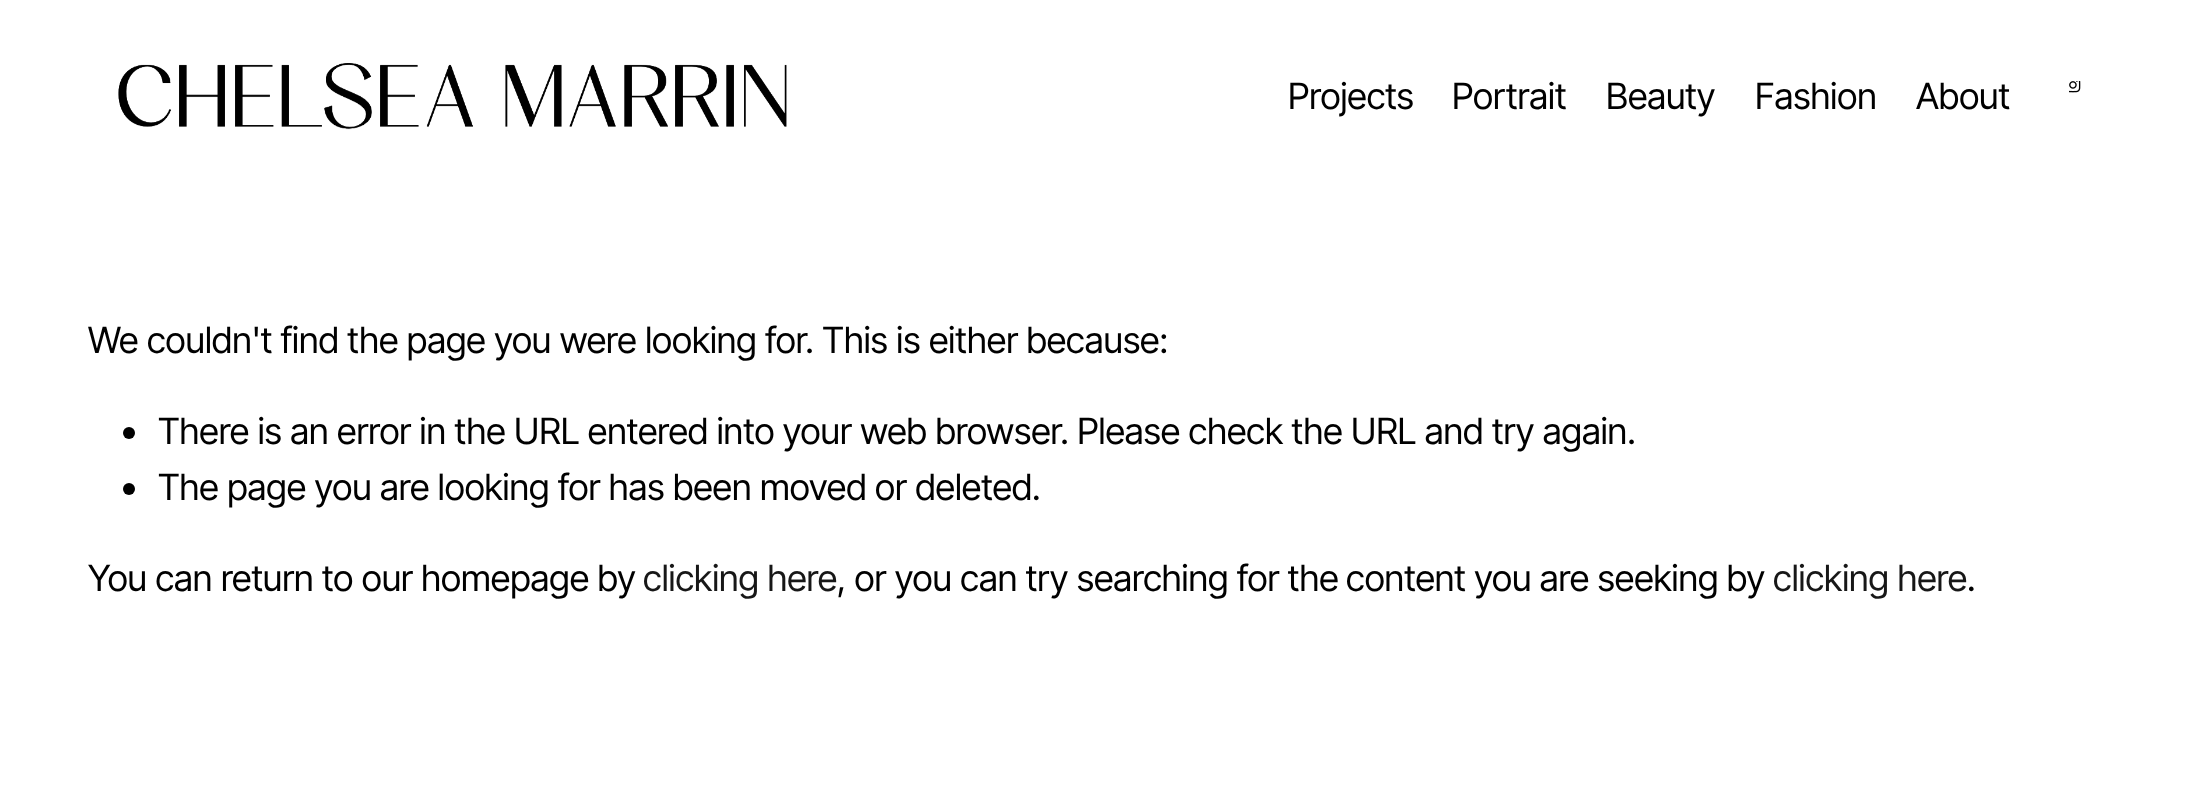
async function draw(canvas) {
  canvas.width = 2187;
  canvas.height = 802;
  const ctx = canvas.getContext('2d');
  ctx.miterLimit = 4;
  ctx.fontKerning = 'normal';
  function label(s, x, y, font, color) {
    ctx.font = font;
    ctx.fillStyle = color;
    ctx.fillText(s, x, y);
  }
  function rect(x, y, w, h, color) {
    ctx.fillStyle = color;
    ctx.fillRect(x, y, w, h);
  }
  async function image(src, x, y, w, h) {
    const img = new Image();
    img.src = src;
    await img.decode();
    ctx.drawImage(img, x, y, w, h);
  }

  rect(0, 0, 2187, 802, '#fff');
  await image('assets/img1.png', 118, 63, 669, 67);
  label('Projects', 1288, 109, '36.25px Inter Tight', '#000');
  label('Portrait', 1452, 109, '36.25px Inter Tight', '#000');
  label('Beauty', 1606, 109, '36.25px Inter Tight', '#000');
  label('Fashion', 1755, 109, '36.25px Inter Tight', '#000');
  label('About', 1916, 109, '36.25px Inter Tight', '#000');
  await image('assets/img2.png', 2069, 81, 12, 12);
  label('We couldn\'t find the page you were looking for. This is either because:', 88, 353, '36.25px Inter Tight', '#000');
  ctx.beginPath();
  ctx.arc(129, 433, 6, 0, 2 * Math.PI);
  ctx.fill();
  label('There is an error in the URL entered into your web browser. Please check the URL and try again.', 158, 444, '36.25px Inter Tight', '#000');
  ctx.beginPath();
  ctx.arc(129, 489, 6, 0, 2 * Math.PI);
  ctx.fill();
  label('The page you are looking for has been moved or deleted.', 158, 500, '36.25px Inter Tight', '#000');
  label('You can return to our homepage by', 88, 591, '36.25px Inter Tight', '#000');
  label('clicking here', 643, 591, '36.25px Inter Tight', '#171717');
  label(', or you can try searching for the', 837, 591, '36.25px Inter Tight', '#000');
  label('content you are seeking by', 1346, 591, '36.25px Inter Tight', '#000');
  label('clicking here', 1773, 591, '36.25px Inter Tight', '#171717');
  label('.', 1967, 591, '36.25px Inter Tight', '#000');
}

draw(document.querySelector('canvas'));
